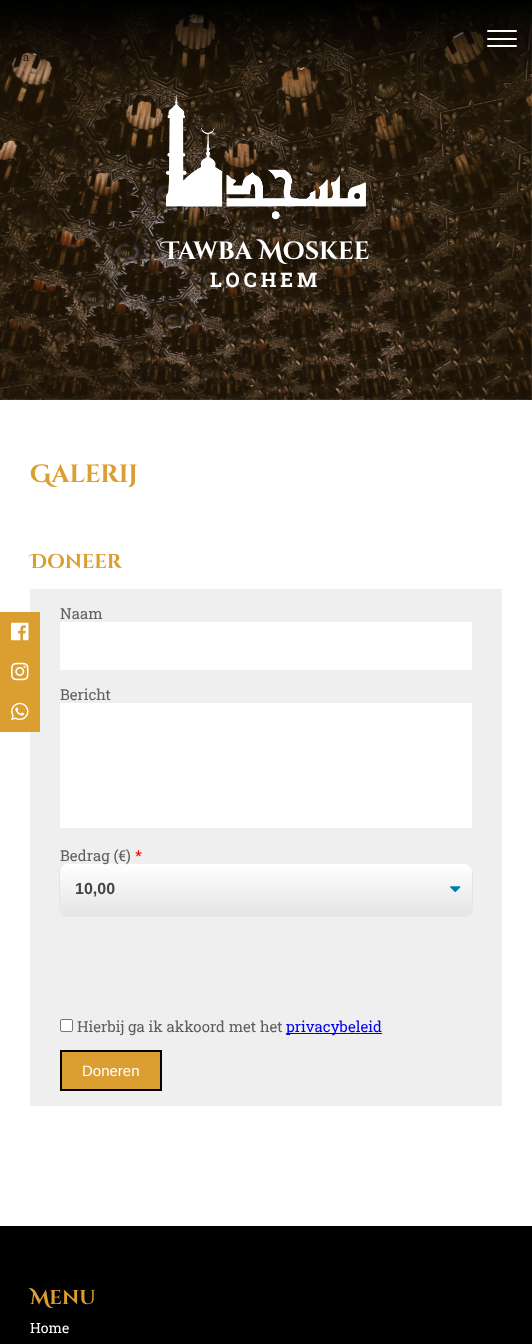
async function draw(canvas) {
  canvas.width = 532;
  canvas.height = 1344;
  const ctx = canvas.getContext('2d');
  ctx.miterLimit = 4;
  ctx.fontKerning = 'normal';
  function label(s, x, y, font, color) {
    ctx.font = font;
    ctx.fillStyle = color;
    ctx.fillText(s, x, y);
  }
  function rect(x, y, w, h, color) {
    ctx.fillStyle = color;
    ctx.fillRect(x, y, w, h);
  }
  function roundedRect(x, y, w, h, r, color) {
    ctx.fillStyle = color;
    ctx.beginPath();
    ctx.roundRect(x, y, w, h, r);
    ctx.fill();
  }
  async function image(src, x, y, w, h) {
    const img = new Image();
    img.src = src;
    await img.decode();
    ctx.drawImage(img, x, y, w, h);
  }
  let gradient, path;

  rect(0, 0, 532, 1344, '#fff');
  await image('assets/img1.png', 0, 0, 532, 400);
  gradient = ctx.createLinearGradient(266, 0, 266, 78);
  gradient.addColorStop(0, '#000');
  gradient.addColorStop(1, '#00000000');
  ctx.fillStyle = gradient;
  ctx.fillRect(0, 0, 532, 76);
  roundedRect(487, 45, 30, 2, 1, '#fff');
  roundedRect(487, 38, 30, 2, 1, '#fff');
  roundedRect(487, 30, 30, 2, 1, '#fff');
  ctx.letterSpacing = '1px';
  label('a', 23, 61, '11px Roboto Slab', '#2a1e11');
  label('ee', 91, 61, '11px Roboto Slab', '#2a1e11');
  await image('assets/img2.png', 166, 94, 200, 126);
  ctx.letterSpacing = '0px';
  label('Tawba Moskee', 162, 259, 'bold 25px Cinzel Decorative', '#fff');
  ctx.letterSpacing = '4px';
  label('LOCHEM', 210, 287, 'bold 20px Roboto Slab', '#fff');
  rect(30, 589, 472, 517, '#efefef');
  rect(0, 612, 40, 120, '#db9e30');
  await image('assets/img3.png', 11, 622, 18, 19);
  await image('assets/img4.png', 11, 662, 18, 19);
  await image('assets/img5.png', 11, 702, 18, 19);
  ctx.letterSpacing = '0px';
  label('Galerij', 30, 482, 'bold 25px Cinzel Decorative', '#db9e30');
  label('Doneer', 30, 568, 'bold 20px Cinzel Decorative', '#db9e30');
  label('Naam', 60, 619, '15px Roboto Slab', '#605e5e');
  rect(60, 622, 412, 48, '#fff');
  label('Bericht', 60, 700, '15px Roboto Slab', '#605e5e');
  rect(60, 703, 412, 125, '#fff');
  ctx.fillStyle = '#e5e5e5';
  path = new Path2D('M68 864C63 864 59 868 59 873V908C59 913 63 917 68 917H464C469 917 473 913 473 908V873C473 868 469 864 464 864C468 864 472 868 472 872V907C472 911 468 915 464 915H68C64 915 60 911 60 907V872C60 868 64 864 68 864Z');
  ctx.fill(path);
  gradient = ctx.createLinearGradient(266, 864, 266, 915);
  gradient.addColorStop(0, '#fff');
  gradient.addColorStop(1, '#e5e5e5');
  ctx.fillStyle = gradient;
  ctx.beginPath();
  ctx.roundRect(60, 864, 412, 51, 8);
  ctx.fill();
  label('Bedrag (€)', 60, 861, '15px Roboto Slab', '#605e5e');
  label('*', 135, 861, '15px Roboto Slab', '#f00');
  await image('assets/img6.png', 450, 886, 11, 7);
  label('10,00', 75, 894, 'bold 16px Liberation Sans', '#444');
  ctx.fillStyle = '#fff';
  ctx.beginPath();
  ctx.roundRect(60.5, 1019.5, 12, 12, 1.5);
  ctx.fill();
  ctx.strokeStyle = '#767676';
  ctx.stroke();
  label('Hierbij ga ik akkoord met het', 77, 1032, '15px Roboto Slab', '#605e5e');
  rect(286, 1033, 96, 1, '#00e');
  label('privacybeleid', 286, 1032, '15px Roboto Slab', '#00e');
  ctx.fillStyle = '#db9e30';
  ctx.beginPath();
  ctx.rect(61, 1051, 100, 39);
  ctx.fill();
  ctx.strokeStyle = '#000';
  ctx.lineWidth = 2;
  ctx.stroke();
  label('Doneren', 82, 1076, '15px Liberation Sans', '#fff');
  rect(0, 1226, 532, 118, '#000');
  label('Menu', 30, 1304, 'bold 20px Cinzel Decorative', '#db9e30');
  label('Home', 30, 1333, '14px Roboto Slab', '#fff');
}

draw(document.querySelector('canvas'));
